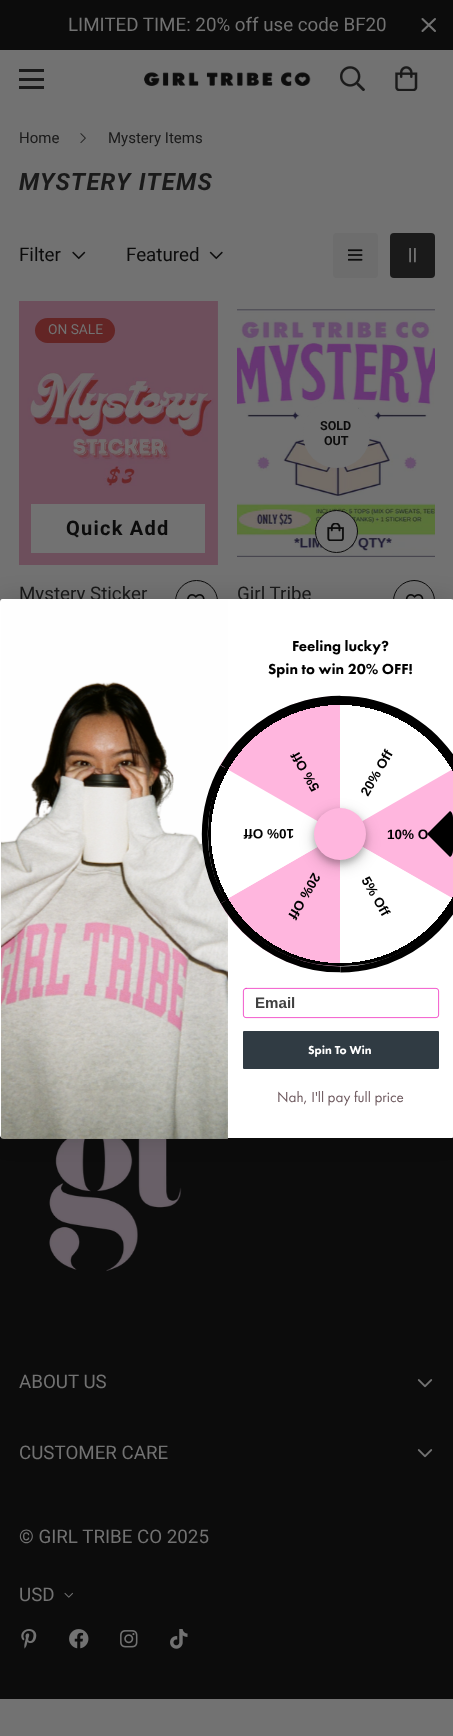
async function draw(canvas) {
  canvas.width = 453;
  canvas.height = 1736;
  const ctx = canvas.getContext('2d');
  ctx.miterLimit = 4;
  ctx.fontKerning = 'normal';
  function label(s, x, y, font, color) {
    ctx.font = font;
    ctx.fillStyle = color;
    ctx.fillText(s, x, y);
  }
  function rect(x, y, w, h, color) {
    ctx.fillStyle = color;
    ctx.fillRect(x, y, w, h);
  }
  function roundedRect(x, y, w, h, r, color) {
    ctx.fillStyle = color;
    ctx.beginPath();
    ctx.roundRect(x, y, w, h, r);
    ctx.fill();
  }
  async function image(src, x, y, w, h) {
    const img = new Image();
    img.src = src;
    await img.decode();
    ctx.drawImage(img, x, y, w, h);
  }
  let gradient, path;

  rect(0, 0, 453, 1736, '#727272');
  rect(0, 0, 453, 50, '#0c0c0c');
  label('LIMITED TIME: 20% off use code BF20', 68, 31, '18.75px Roboto', '#727272');
  path = new Path2D('M422.5 31L435 19M422.5 19L435 31');
  ctx.strokeStyle = '#727272';
  ctx.lineWidth = 2.1;
  ctx.lineCap = 'round';
  ctx.lineJoin = 'round';
  ctx.stroke(path);
  rect(19, 78, 25, 3, '#1a1a1a');
  rect(19, 69, 25, 3, '#1a1a1a');
  rect(19, 86, 25, 3, '#1a1a1a');
  await image('assets/img1.png', 144, 72, 167, 14);
  await image('assets/img2.png', 340, 66, 25, 25);
  await image('assets/img3.png', 395, 66, 23, 25);
  label('Home', 19, 143, '15px Roboto', '#1a1a1a');
  await image('assets/img4.png', 80, 133, 6, 10);
  label('Mystery Items', 108, 143, '15px Roboto', '#1a1a1a');
  ctx.letterSpacing = '1.25px';
  label('MYSTERY ITEMS', 19, 190, 'italic bold 23.75px Roboto', '#1a1a1a');
  ctx.letterSpacing = '0px';
  label('Filter', 19, 261, '18.75px Roboto', '#0c0c0c');
  await image('assets/img5.png', 72, 251, 14, 9);
  label('Featured', 126, 261, '18.75px Roboto', '#0c0c0c');
  await image('assets/img6.png', 209, 251, 14, 9);
  roundedRect(333, 233, 45, 45, 4, '#6d6d6d');
  await image('assets/img7.png', 348, 249, 15, 12);
  roundedRect(390, 233, 45, 45, 4, '#1a1a1a');
  await image('assets/img8.png', 409, 248, 7, 15);
  await image('assets/img9.png', 19, 301, 199, 264);
  roundedRect(35, 318, 80, 25, 12.5, '#632525');
  label('ON SALE', 48, 334, '13.75px Roboto', '#727272');
  rect(31, 504, 174, 49, '#727272');
  ctx.letterSpacing = '1.25px';
  label('Quick Add', 66, 535, 'bold 20px Roboto', '#0c0c0c');
  ctx.letterSpacing = '0px';
  label('Mystery Sticker', 19, 600, '18.75px Roboto', '#1a1a1a');
  ctx.beginPath();
  ctx.arc(196.5, 601.5, 21, 0, 2 * Math.PI);
  ctx.strokeStyle = '#0c0c0c';
  ctx.lineWidth = 1;
  ctx.stroke();
  await image('assets/img10.png', 187, 594, 18, 5);
  await image('assets/img11.png', 237, 309, 198, 248);
  roundedRect(303, 400, 67, 68, 33.5, '#727272');
  label('SOLD', 320, 430, 'bold 12.5px Roboto', '#0c0c0c');
  label('OUT', 324, 445, 'bold 12.5px Roboto', '#0c0c0c');
  ctx.fillStyle = '#727272';
  ctx.beginPath();
  ctx.arc(336.5, 531.5, 21, 0, 2 * Math.PI);
  ctx.fill();
  ctx.stroke();
  await image('assets/img12.png', 327, 523, 17, 18);
  label('Girl Tribe', 237, 600, '18.75px Roboto', '#1a1a1a');
  ctx.beginPath();
  ctx.roundRect(393.5, 580.5, 41, 42, 20.5);
  ctx.lineJoin = 'miter';
  ctx.stroke();
  await image('assets/img13.png', 405, 594, 19, 5);
  rect(0, 1135, 453, 564, '#0c0c0c');
  await image('assets/img15.png', 49, 1138, 133, 134);
  ctx.fillStyle = '#00000026';
  ctx.filter = 'blur(11.5px)';
  ctx.beginPath();
  ctx.roundRect(0, 599, 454, 539, 3);
  ctx.fill();
  ctx.filter = 'none';
  roundedRect(0, 599, 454, 539, 3, '#fff');
  await image('assets/img14.png', 1, 599, 227, 540);
  label('Feeling lucky?', 292, 651, '900 15.1px Futura PT', '#000');
  label('Spin to win 20% OFF!', 268, 674, '900 15.1px Futura PT', '#000');
  ctx.fillStyle = '#ffb6de';
  path = new Path2D('M340 972V834L220 903C244 945 289 972 340 972Z');
  ctx.fill(path);
  ctx.fillStyle = '#000';
  path = new Path2D('M341 696H340V702C387 702 432 727 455 768L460 765C436 724 392 696 341 696Z');
  ctx.fill(path);
  ctx.font = 'bold 13.5px Liberation Sans';
  ctx.save();
  ctx.translate(368, 797);
  ctx.rotate(-60 * Math.PI / 180);
  ctx.fillText('20% Off', 0, 0);
  ctx.restore();
  ctx.fillStyle = '#ffb6de';
  path = new Path2D('M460 765L340 834L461 903C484 862 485 809 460 765Z');
  ctx.fill(path);
  label('10% O', 387, 839, 'bold 13.5px Liberation Sans', '#000');
  ctx.fillStyle = '#fff';
  path = new Path2D('M340 834L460 903C434 947 388 972 340 972Z');
  ctx.fill(path);
  ctx.save();
  path = new Path2D('M340.5 834L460 903.5L391 1023L340.5 972.5Z');
  ctx.clip(path);
  path = new Path2D('M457.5 902C420 966.5 337.5 988.5 272.5 951.5C208 914 185.5 831 223 766.5C260.5 701.5 343.5 679.5 408 717C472.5 754 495 837 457.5 902Z');
  ctx.strokeStyle = '#000';
  ctx.lineWidth = 6;
  ctx.lineCap = 'butt';
  ctx.stroke(path);
  ctx.restore();
  ctx.save();
  path = new Path2D('M340.5 834V972.5H202L220.5 903.5Z');
  ctx.clip(path);
  path = new Path2D('M340.5 969.5C265.5 969.5 205 909 205 834C205 759.5 265.5 698.5 340.5 698.5C415 698.5 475.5 759.5 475.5 834C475.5 909 415 969.5 340.5 969.5Z');
  ctx.strokeStyle = '#000';
  ctx.lineWidth = 6;
  ctx.lineCap = 'butt';
  ctx.stroke(path);
  ctx.restore();
  ctx.fillStyle = '#000';
  ctx.save();
  ctx.translate(313, 872);
  ctx.rotate(120 * Math.PI / 180);
  ctx.fillText('20% Off', 0, 0);
  ctx.restore();
  ctx.fillStyle = '#fff';
  path = new Path2D('M340 834L220 903C196 860 195 808 220 765Z');
  ctx.fill(path);
  ctx.save();
  path = new Path2D('M340.5 834L220.5 903.5L151.5 783.5L220.5 765Z');
  ctx.clip(path);
  path = new Path2D('M223 902C185.5 837 208 754 272.5 717C337.5 679.5 420 701.5 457.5 766.5C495 831 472.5 914 408 951.5C343.5 988.5 260.5 966.5 223 902Z');
  ctx.strokeStyle = '#000';
  ctx.lineWidth = 6;
  ctx.lineCap = 'butt';
  ctx.stroke(path);
  ctx.restore();
  ctx.fillStyle = '#000';
  ctx.save();
  ctx.translate(294, 829);
  ctx.rotate(180 * Math.PI / 180);
  ctx.fillText('10% Off', 0, 0);
  ctx.restore();
  ctx.fillStyle = '#ffb6de';
  path = new Path2D('M340 834V696C291 696 245 723 220 765Z');
  ctx.fill(path);
  ctx.save();
  path = new Path2D('M340.5 834L220.5 765L289.5 645L340.5 695.5Z');
  ctx.clip(path);
  path = new Path2D('M223 766.5C260.5 701.5 343.5 679.5 408 717C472.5 754 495 837 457.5 902C420 966.5 337.5 988.5 272.5 951.5C208 914 185.5 831 223 766.5Z');
  ctx.strokeStyle = '#000';
  ctx.lineWidth = 6;
  ctx.lineCap = 'butt';
  ctx.stroke(path);
  ctx.restore();
  ctx.fillStyle = '#000';
  ctx.save();
  ctx.translate(320, 788);
  ctx.rotate(-120 * Math.PI / 180);
  ctx.fillText('5% Off', 0, 0);
  ctx.restore();
  ctx.save();
  ctx.translate(361, 880);
  ctx.rotate(60 * Math.PI / 180);
  ctx.fillText('5% Off', 0, 0);
  ctx.restore();
  ctx.fillStyle = '#00000033';
  ctx.filter = 'blur(7.5px)';
  ctx.beginPath();
  ctx.roundRect(314, 813, 52, 52, 26);
  ctx.fill();
  ctx.filter = 'none';
  ctx.filter = 'blur(3px)';
  ctx.beginPath();
  ctx.roundRect(314, 811, 52, 53, 26);
  ctx.fill();
  ctx.filter = 'none';
  ctx.fillStyle = '#ffb6de';
  ctx.beginPath();
  ctx.arc(340, 834, 26, 0, 2 * Math.PI);
  ctx.fill();
  ctx.fillStyle = '#000';
  path = new Path2D('M453 818C453 815 452 812 450 811L427 834L450 857C452 856 453 853 453 850Z');
  ctx.fill(path);
  gradient = ctx.createRadialGradient(340, 834, 0, 340, 834, 187);
  gradient.addColorStop(0.69, '#00000000');
  gradient.addColorStop(0.69, '#000');
  ctx.fillStyle = gradient;
  ctx.beginPath();
  ctx.roundRect(208, 701, 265, 265, 130);
  ctx.fill();
  ctx.beginPath();
  ctx.roundRect(243.4, 988.4, 195.2, 29.2, 2.6);
  ctx.strokeStyle = '#ef30bf';
  ctx.lineWidth = 0.8;
  ctx.stroke();
  label('Email', 255, 1008, 'bold 15.1px Liberation Sans', '#404040');
  roundedRect(243, 1031, 196, 38, 1, '#303b43');
  label('Spin To Win', 308, 1054, '900 12px Futura PT', '#fff');
  label('Nah, I\'ll pay full price', 277, 1102, '15.1px Futura PT', '#6d595e');
  label('ABOUT US', 19, 1388, '18.75px Roboto', '#727272');
  await image('assets/img16.png', 417, 1379, 16, 9);
  label('CUSTOMER CARE', 19, 1459, '18.75px Roboto', '#727272');
  await image('assets/img16.png', 417, 1449, 16, 9);
  label('© GIRL TRIBE CO 2025', 19, 1543, '18.75px Roboto', '#727272');
  label('USD', 19, 1601, '18.75px Roboto', '#727272');
  await image('assets/img17.png', 64, 1592, 9, 6);
  await image('assets/img18.png', 21, 1629, 16, 20);
  await image('assets/img19.png', 69, 1629, 20, 20);
  await image('assets/img20.png', 120, 1630, 18, 18);
  await image('assets/img21.png', 170, 1629, 18, 20);
}

draw(document.querySelector('canvas'));
